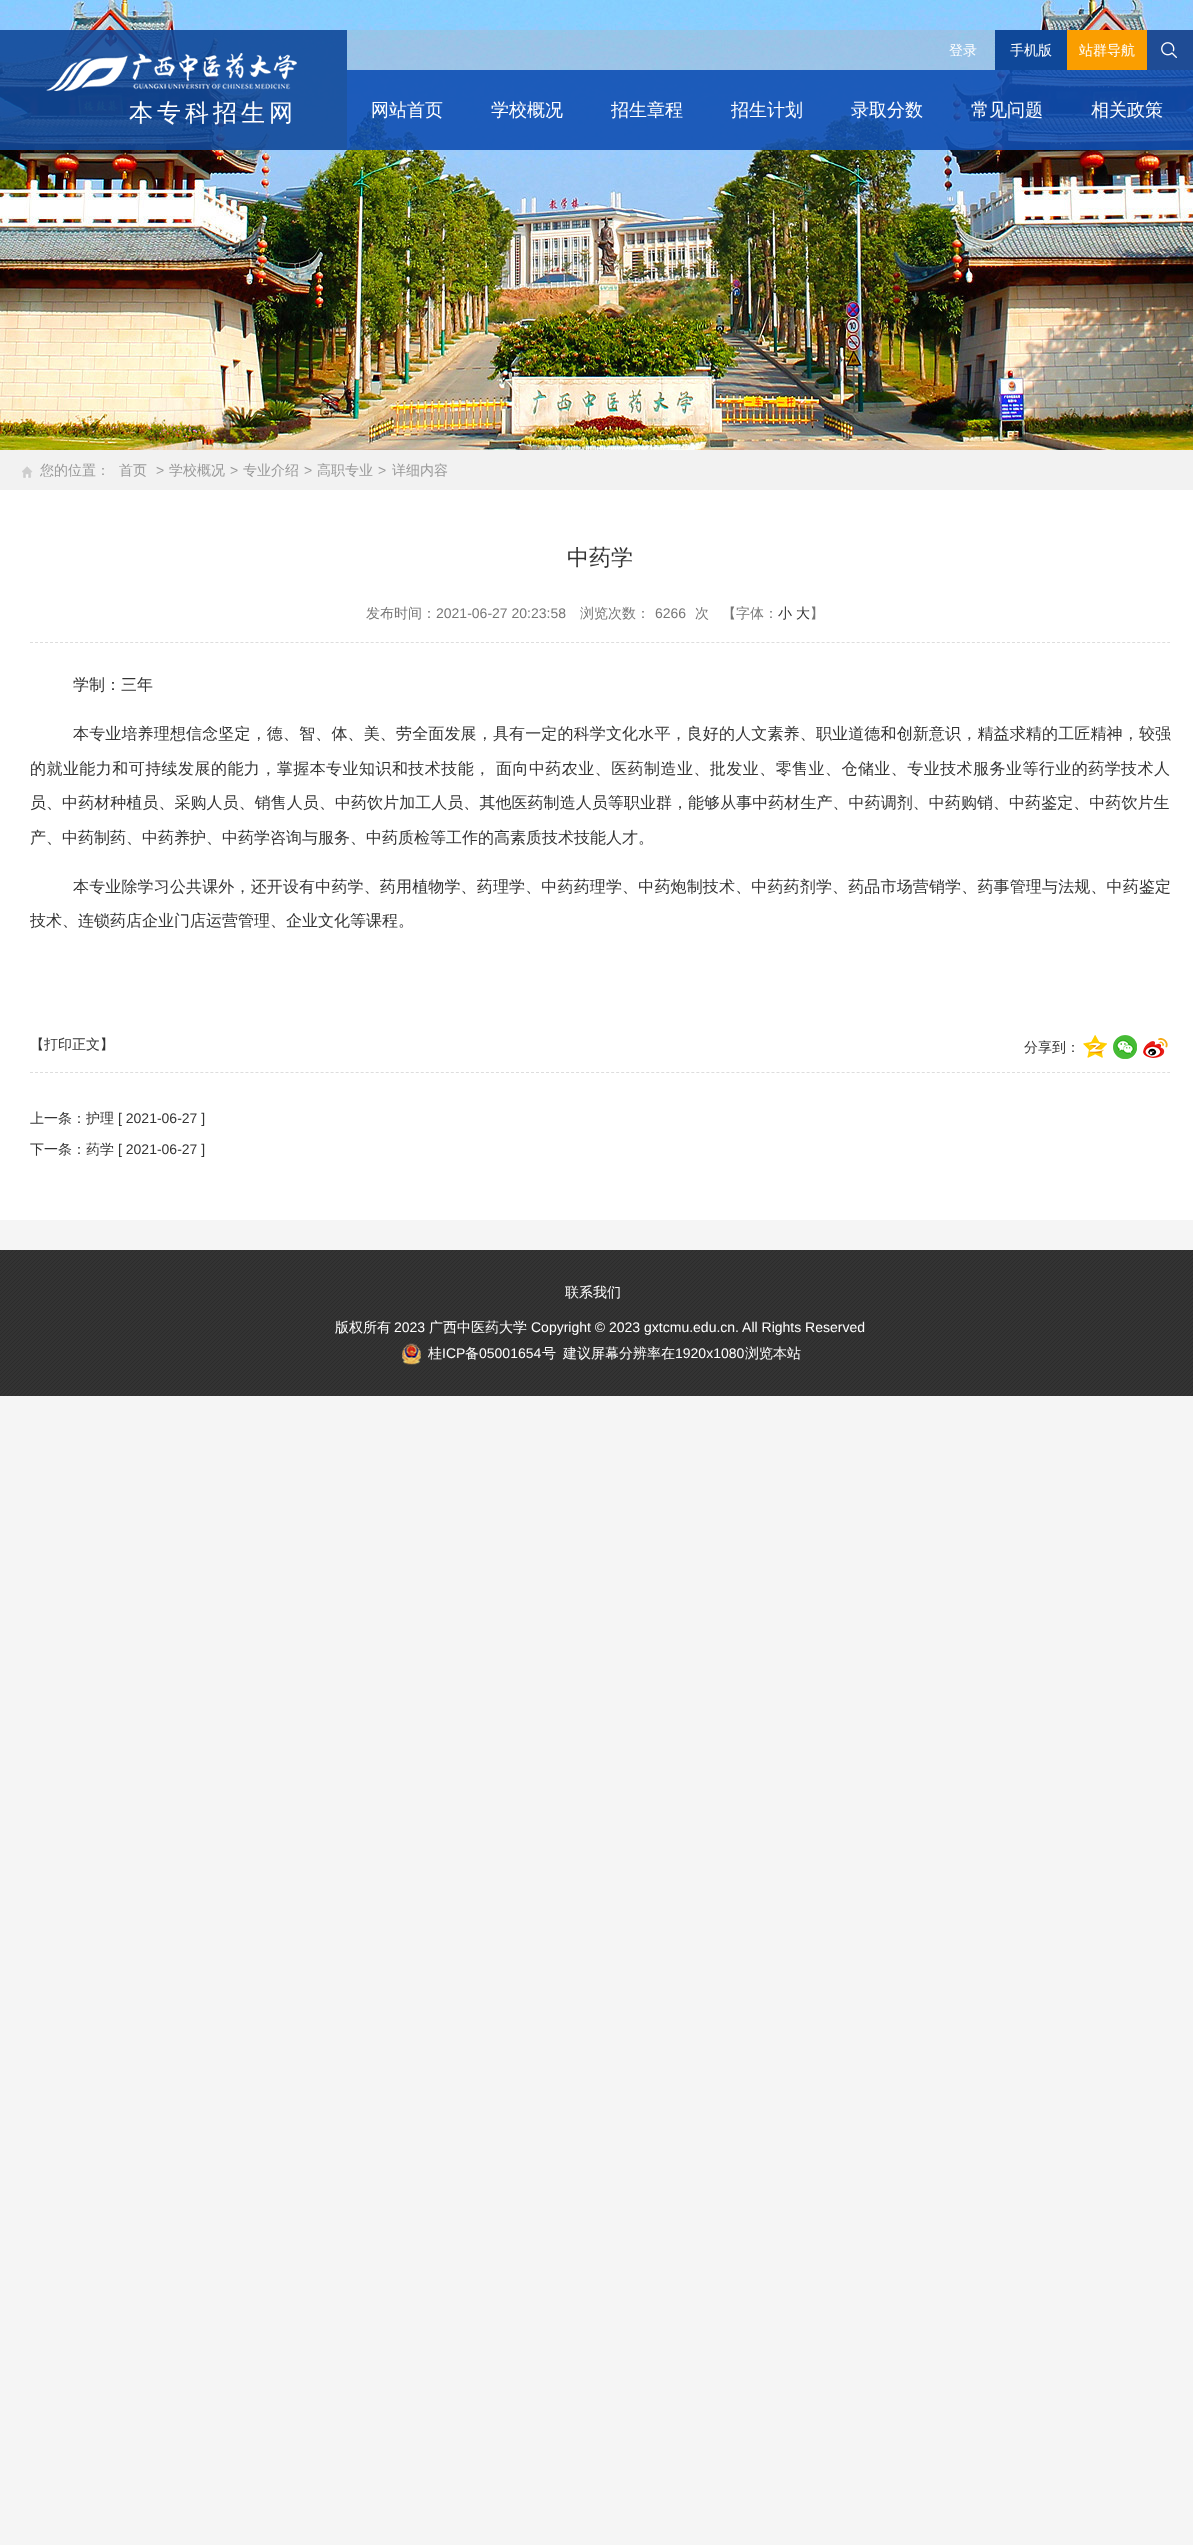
async function draw(canvas) {
  canvas.width = 1193;
  canvas.height = 2545;
  const ctx = canvas.getContext('2d');
  ctx.miterLimit = 4;
  ctx.fontKerning = 'normal';
  function label(s, x, y, font, color) {
    ctx.font = font;
    ctx.fillStyle = color;
    ctx.fillText(s, x, y);
  }
  function rect(x, y, w, h, color) {
    ctx.fillStyle = color;
    ctx.fillRect(x, y, w, h);
  }
  async function image(src, x, y, w, h) {
    const img = new Image();
    img.src = src;
    await img.decode();
    ctx.drawImage(img, x, y, w, h);
  }
  let path;

  rect(0, 0, 1193, 2545, '#f5f5f5');
  await image('assets/img1.png', 0, 0, 1193, 450);
  rect(0, 30, 347, 120, '#0f4899e6');
  await image('assets/img2.png', 46, 53, 251, 38);
  ctx.letterSpacing = '4px';
  label('本专科招生网', 129, 121, '500 24px WenQuanYi Zen Hei', '#fff');
  rect(347, 30, 648, 40, '#b4b4b44d');
  rect(1147, 30, 46, 40, '#1f4c95');
  await image('assets/img3.png', 1161, 42, 16, 16);
  ctx.letterSpacing = '0px';
  label('登录', 949, 55, '500 14px WenQuanYi Zen Hei', '#fff');
  rect(995, 30, 72, 40, '#0f4899');
  label('手机版', 1010, 55, '500 14px WenQuanYi Zen Hei', '#fff');
  rect(1067, 30, 80, 40, '#fa9e00');
  label('站群导航', 1079, 55, '500 14px WenQuanYi Zen Hei', '#fff');
  rect(347, 70, 846, 80, '#0f4fb2e6');
  label('网站首页', 371, 116, '500 18px WenQuanYi Zen Hei', '#fff');
  label('学校概况', 491, 116, '500 18px WenQuanYi Zen Hei', '#fff');
  label('招生章程', 611, 116, '500 18px WenQuanYi Zen Hei', '#fff');
  label('招生计划', 731, 116, '500 18px WenQuanYi Zen Hei', '#fff');
  label('录取分数', 851, 116, '500 18px WenQuanYi Zen Hei', '#fff');
  label('常见问题', 971, 116, '500 18px WenQuanYi Zen Hei', '#fff');
  label('相关政策', 1091, 116, '500 18px WenQuanYi Zen Hei', '#fff');
  rect(0, 450, 1193, 40, '#f2f2f2');
  await image('assets/img4.png', 22, 466, 11, 12);
  label('您的位置：', 40, 475, '500 14px WenQuanYi Zen Hei', '#999');
  label('首页', 119, 475, '500 14px WenQuanYi Zen Hei', '#999');
  label('>', 156, 475, '14px Liberation Sans', '#999');
  label('学校概况', 169, 475, '500 14px WenQuanYi Zen Hei', '#999');
  label('>', 230, 475, '14px Liberation Sans', '#999');
  label('专业介绍', 243, 475, '500 14px WenQuanYi Zen Hei', '#999');
  label('>', 304, 475, '14px Liberation Sans', '#999');
  label('高职专业', 317, 475, '500 14px WenQuanYi Zen Hei', '#999');
  label('>', 378, 475, '14px Liberation Sans', '#999');
  label('详细内容', 392, 475, '500 14px WenQuanYi Zen Hei', '#999');
  rect(0, 490, 1193, 730, '#fff');
  label('中药学', 567, 565, '500 22px WenQuanYi Zen Hei', '#333');
  path = new Path2D('M30 642.5H1170');
  ctx.strokeStyle = '#ddd';
  ctx.setLineDash([3, 2.01]);
  ctx.stroke(path);
  label('发布时间：', 366, 618, '500 14px WenQuanYi Zen Hei', '#777');
  label('2021-06-27 20:23:58', 436, 618, '14px Liberation Sans', '#777');
  label('浏览次数：', 580, 618, '500 14px WenQuanYi Zen Hei', '#777');
  label('6266', 655, 618, '14px Liberation Sans', '#777');
  label('次', 695, 618, '500 14px WenQuanYi Zen Hei', '#777');
  label('【字体：', 722, 618, '500 14px WenQuanYi Zen Hei', '#777');
  label('小', 778, 618, '500 14px WenQuanYi Zen Hei', '#333');
  label('大', 796, 618, '500 14px WenQuanYi Zen Hei', '#333');
  label('】', 810, 618, '500 14px WenQuanYi Zen Hei', '#777');
  label('学制：三年', 73, 690, '500 16px WenQuanYi Zen Hei', '#333');
  ctx.letterSpacing = '0.15px';
  label('本专业培养理想信念坚定，德、智、体、美、劳全面发展，具有一定的科学文化水平，良好的人文素养、职业道德和创新意识，精益求精的工匠精神，较强', 73, 739, '500 16px WenQuanYi Zen Hei', '#333');
  ctx.letterSpacing = '0.45px';
  label('的就业能力和可持续发展的能力，掌握本专业知识和技术技能，', 30, 774, '500 16px WenQuanYi Zen Hei', '#333');
  label('面向中药农业、医药制造业、批发业、零售业、仓储业、专业技术服务业等行业的药学技术人', 496, 774, '500 16px WenQuanYi Zen Hei', '#333');
  ctx.letterSpacing = '0.05px';
  label('员、中药材种植员、采购人员、销售人员、中药饮片加工人员、其他医药制造人员等职业群，能够从事中药材生产、中药调剂、中药购销、中药鉴定、中药饮片生', 30, 808, '500 16px WenQuanYi Zen Hei', '#333');
  ctx.letterSpacing = '0px';
  label('产、中药制药、中药养护、中药学咨询与服务、中药质检等工作的高素质技术技能人才。', 30, 843, '500 16px WenQuanYi Zen Hei', '#333');
  ctx.letterSpacing = '0.15px';
  label('本专业除学习公共课外，还开设有中药学、药用植物学、药理学、中药药理学、中药炮制技术、中药药剂学、药品市场营销学、药事管理与法规、中药鉴定', 73, 892, '500 16px WenQuanYi Zen Hei', '#333');
  ctx.letterSpacing = '0px';
  label('技术、连锁药店企业门店运营管理、企业文化等课程。', 30, 926, '500 16px WenQuanYi Zen Hei', '#333');
  path = new Path2D('M30 1072.5H1170');
  ctx.stroke(path);
  label('【打印正文】', 30, 1049, '500 14px WenQuanYi Zen Hei', '#333');
  label('分享到：', 1024, 1052, '500 14px WenQuanYi Zen Hei', '#333');
  await image('assets/img5.png', 1083, 1035, 24, 23);
  await image('assets/img6.png', 1113, 1035, 24, 24);
  await image('assets/img7.png', 1143, 1038, 25, 20);
  label('上一条：护理', 30, 1123, '500 14px WenQuanYi Zen Hei', '#333');
  label('[ 2021-06-27 ]', 118, 1123, '14px Liberation Sans', '#333');
  label('下一条：药学', 30, 1154, '500 14px WenQuanYi Zen Hei', '#333');
  label('[ 2021-06-27 ]', 118, 1154, '14px Liberation Sans', '#333');
  await image('assets/img8.png', 0, 1250, 1193, 146);
  label('联系我们', 565, 1297, '500 14px WenQuanYi Zen Hei', '#fff');
  label('版权所有', 335, 1332, '500 14px WenQuanYi Zen Hei', '#fff');
  label('2023', 394, 1332, '14px Liberation Sans', '#fff');
  label('广西中医药大学', 429, 1332, '500 14px WenQuanYi Zen Hei', '#fff');
  label('Copyright © 2023 gxtcmu.edu.cn. All Rights Reserved', 531, 1332, '14px Liberation Sans', '#fff');
  await image('assets/img9.png', 402, 1343, 19, 22);
  label('桂', 428, 1358, '500 14px WenQuanYi Zen Hei', '#fff');
  label('ICP', 442, 1358, '14px Liberation Sans', '#fff');
  label('备', 465, 1358, '500 14px WenQuanYi Zen Hei', '#fff');
  label('05001654', 479, 1358, '14px Liberation Sans', '#fff');
  label('号', 542, 1358, '500 14px WenQuanYi Zen Hei', '#fff');
  label('建议屏幕分辨率在', 563, 1358, '500 14px WenQuanYi Zen Hei', '#fff');
  label('1920x1080', 675, 1358, '14px Liberation Sans', '#fff');
  label('浏览本站', 745, 1358, '500 14px WenQuanYi Zen Hei', '#fff');
}

draw(document.querySelector('canvas'));
